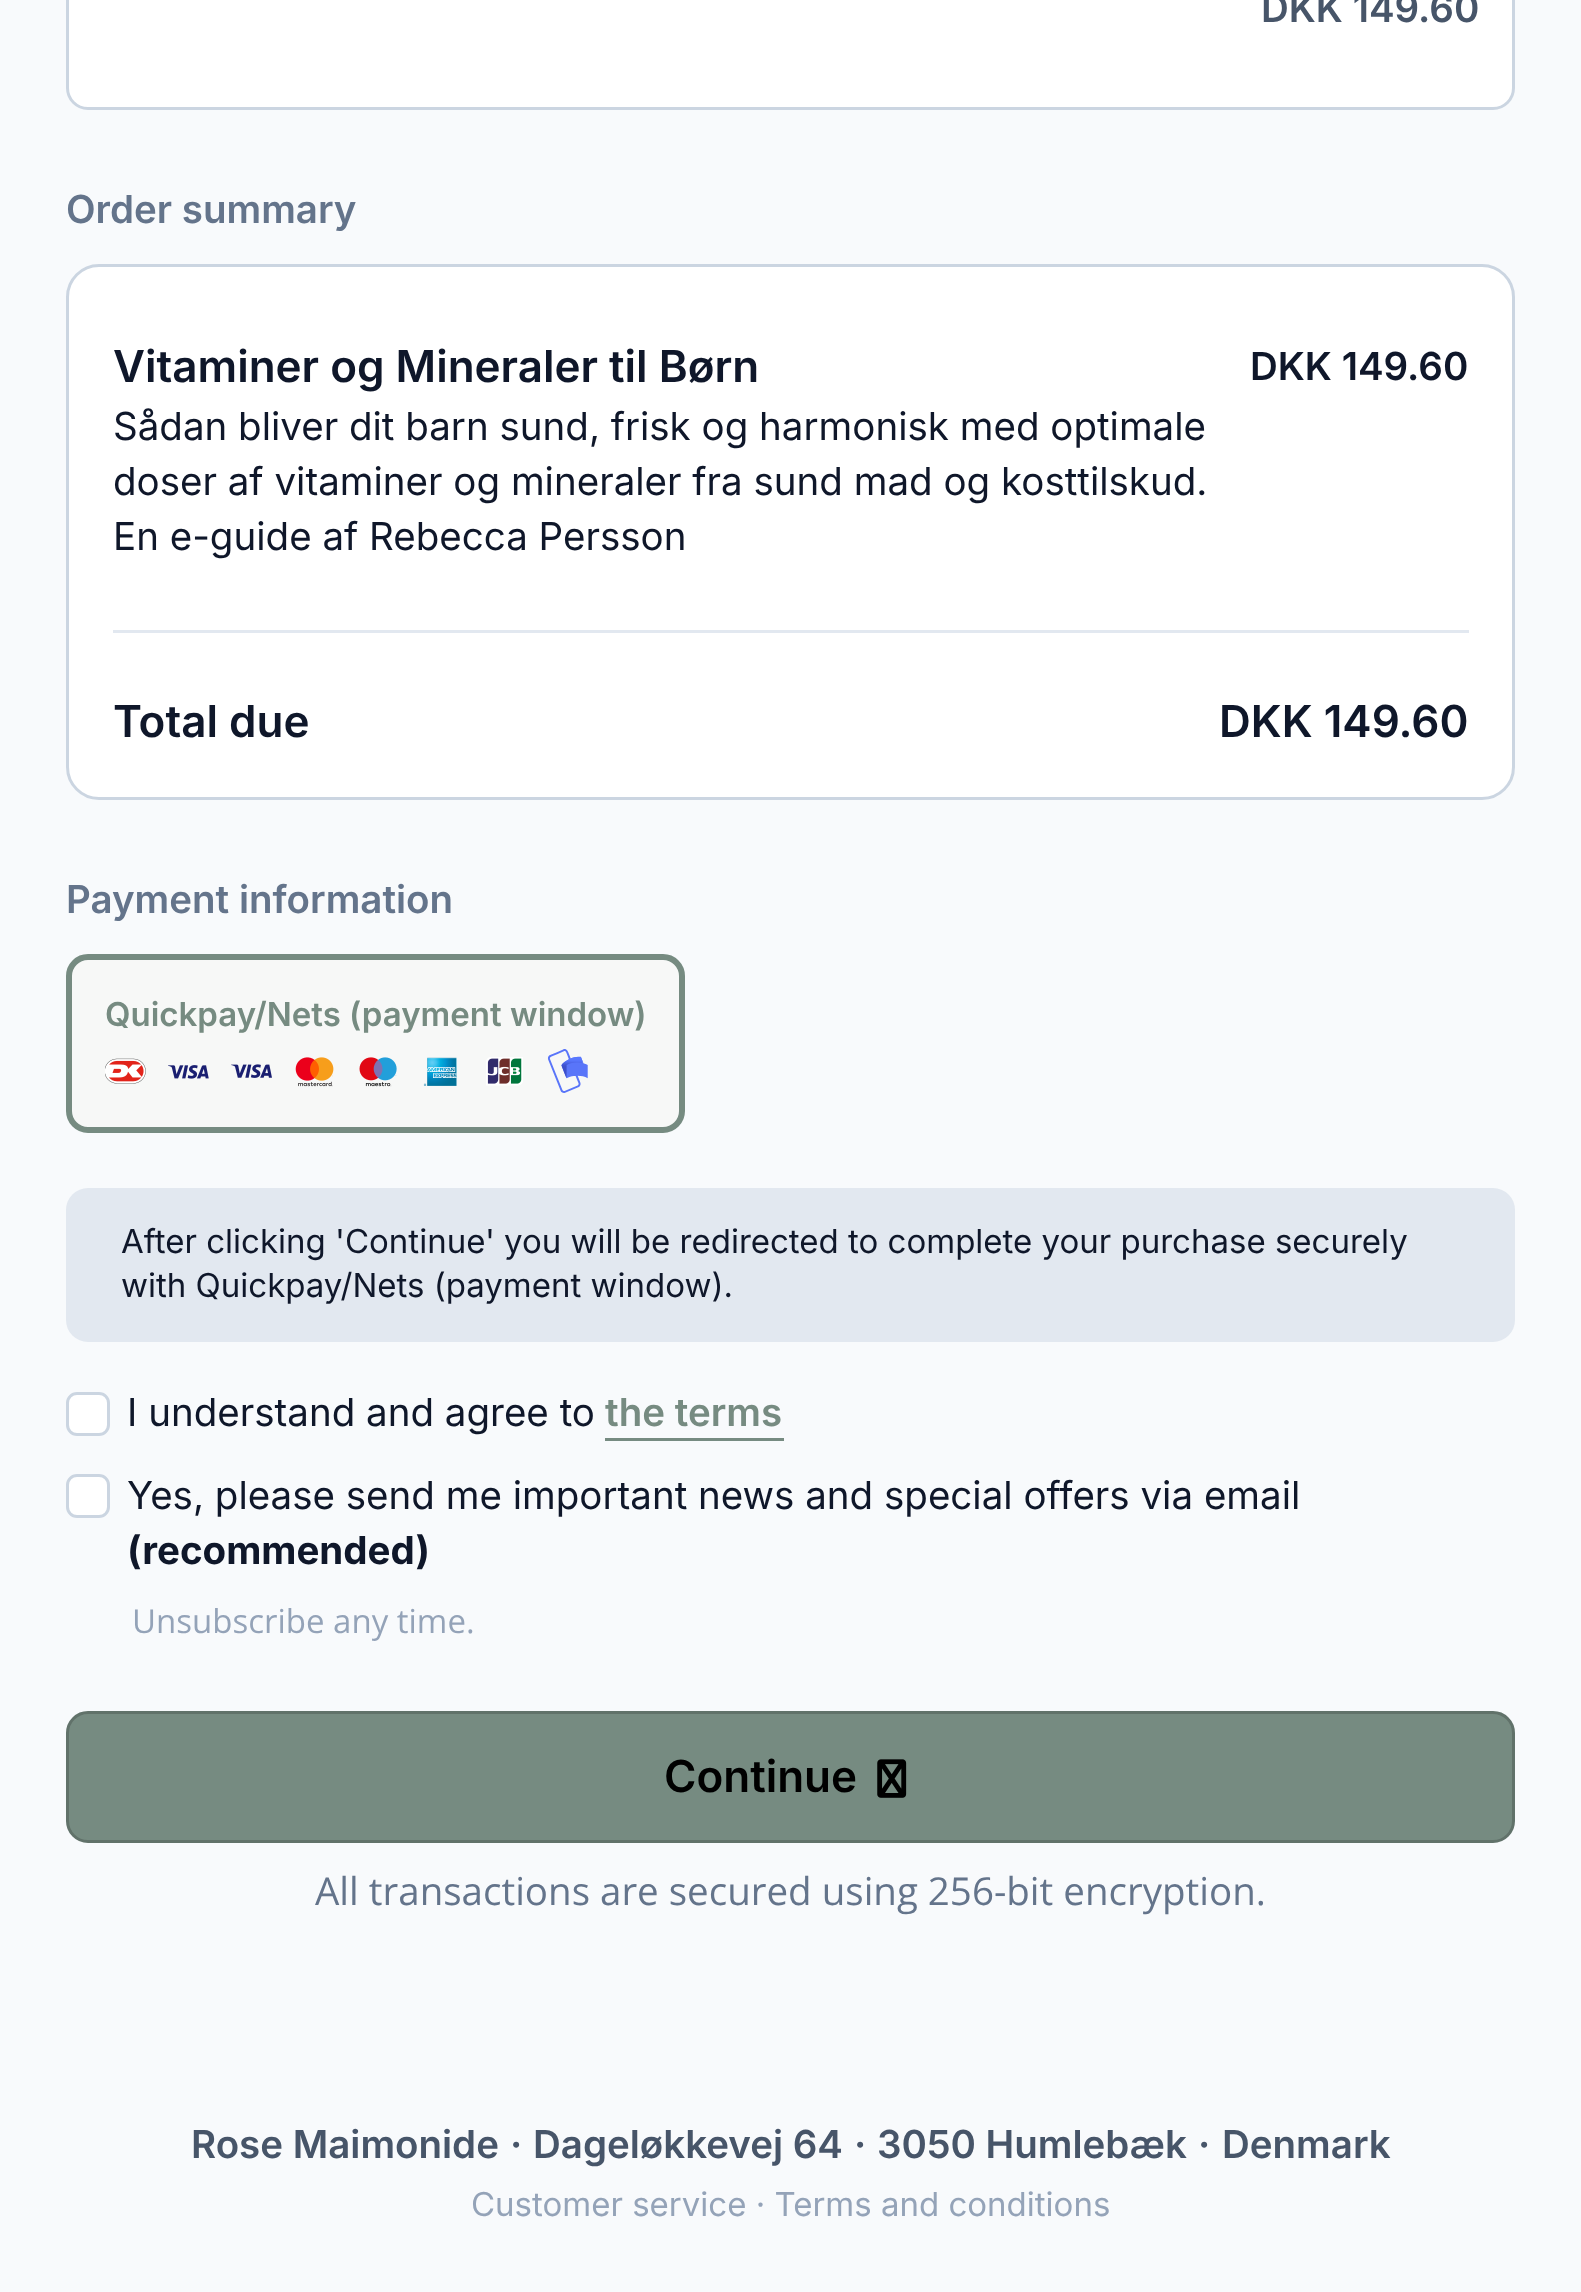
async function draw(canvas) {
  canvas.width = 1581;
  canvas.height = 2292;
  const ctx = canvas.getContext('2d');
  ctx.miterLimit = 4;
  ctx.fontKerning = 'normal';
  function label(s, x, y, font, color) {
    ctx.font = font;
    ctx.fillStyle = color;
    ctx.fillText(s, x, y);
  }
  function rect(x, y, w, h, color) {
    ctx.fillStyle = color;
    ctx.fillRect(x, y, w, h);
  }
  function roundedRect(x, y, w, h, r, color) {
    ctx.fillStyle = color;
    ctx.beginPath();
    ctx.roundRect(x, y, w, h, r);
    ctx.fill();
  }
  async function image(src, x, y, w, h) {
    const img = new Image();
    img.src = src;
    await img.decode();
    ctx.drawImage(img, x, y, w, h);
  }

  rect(0, 0, 1581, 2292, '#f8fafc');
  ctx.fillStyle = '#fff';
  ctx.beginPath();
  ctx.roundRect(67.5, -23.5, 1446, 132, 20.5);
  ctx.fill();
  ctx.strokeStyle = '#cbd5e1';
  ctx.lineWidth = 3;
  ctx.stroke();
  label('DKK 149.60', 1261, 22, '600 38.5px Inter', '#475569');
  label('Order summary', 66, 223, '600 38.5px Inter', '#64748b');
  ctx.fillStyle = '#fff';
  ctx.beginPath();
  ctx.roundRect(67.5, 265.5, 1446, 533, 31.5);
  ctx.fill();
  ctx.stroke();
  label('Vitaminer og Mineraler til Børn', 113, 382, '600 44px Inter', '#0f172a');
  label('Sådan bliver dit barn sund, frisk og harmonisk med optimale', 113, 440, '38.5px Inter', '#0f172a');
  label('doser af vitaminer og mineraler fra sund mad og kosttilskud.', 113, 495, '38.5px Inter', '#0f172a');
  label('En e-guide af Rebecca Persson', 113, 550, '38.5px Inter', '#0f172a');
  label('DKK 149.60', 1250, 380, '600 38.5px Inter', '#0f172a');
  rect(113, 630, 1356, 3, '#e2e8f0');
  label('Total due', 113, 737, '600 44px Inter', '#0f172a');
  label('DKK 149.60', 1219, 737, '600 44px Inter', '#0f172a');
  label('Payment information', 66, 913, '600 38.5px Inter', '#64748b');
  ctx.fillStyle = '#f7f8f7';
  ctx.beginPath();
  ctx.roundRect(69, 957, 613, 173, 19);
  ctx.fill();
  ctx.strokeStyle = '#768b81';
  ctx.lineWidth = 6;
  ctx.stroke();
  label('Quickpay/Nets (payment window)', 105, 1026, '600 33px Inter', '#768b81');
  await image('assets/img1.png', 105, 1058, 41, 26);
  await image('assets/img2.png', 168, 1065, 41, 14);
  await image('assets/img3.png', 231, 1064, 41, 14);
  await image('assets/img4.png', 295, 1057, 39, 30);
  await image('assets/img5.png', 359, 1057, 38, 30);
  await image('assets/img6.png', 423, 1057, 34, 29);
  await image('assets/img7.png', 486, 1057, 37, 29);
  await image('assets/img8.png', 547, 1049, 41, 44);
  roundedRect(66, 1188, 1449, 154, 22, '#e2e8f0');
  label('After clicking \'Continue\' you will be redirected to complete your purchase securely', 121, 1253, '33px Inter', '#0f172a');
  label('with Quickpay/Nets (payment window).', 121, 1297, '33px Inter', '#0f172a');
  ctx.fillStyle = '#fff';
  ctx.beginPath();
  ctx.roundRect(67.5, 1393.5, 41, 41, 9.5);
  ctx.fill();
  ctx.strokeStyle = '#cbd5e1';
  ctx.lineWidth = 3;
  ctx.stroke();
  label('I understand and agree to', 127, 1426, '38.5px Inter', '#0f172a');
  label('the terms', 605, 1426, '600 38.5px Inter', '#768b81');
  rect(605, 1438, 179, 3, '#768b81');
  ctx.fillStyle = '#fff';
  ctx.beginPath();
  ctx.roundRect(67.5, 1475.5, 41, 41, 9.5);
  ctx.fill();
  ctx.stroke();
  label('Yes, please send me important news and special offers via email', 127, 1509, '38.5px Inter', '#0f172a');
  label('(recommended)', 127, 1564, 'bold 38.5px Inter', '#0f172a');
  label('Unsubscribe any time.', 132, 1633, '33px Open Sans', '#94a3b8');
  ctx.fillStyle = '#768b81';
  ctx.beginPath();
  ctx.roundRect(67.5, 1712.5, 1446, 129, 20.5);
  ctx.fill();
  ctx.strokeStyle = '#61726a';
  ctx.stroke();
  label('Continue', 664, 1792, '600 44px Inter', '#000');
  await image('assets/img9.png', 877, 1759, 30, 39);
  label('All transactions are secured using 256-bit encryption.', 315, 1905, '38.5px Open Sans', '#64748b');
  label('Rose Maimonide', 191, 2158, '600 38.5px Inter', '#475569');
  label('·', 510, 2158, '600 38.5px Inter', '#475569');
  label('Dageløkkevej 64', 533, 2158, '600 38.5px Inter', '#475569');
  label('·', 854, 2158, '600 38.5px Inter', '#475569');
  label('3050 Humlebæk', 877, 2158, '600 38.5px Inter', '#475569');
  label('·', 1198, 2158, '600 38.5px Inter', '#475569');
  label('Denmark', 1222, 2158, '600 38.5px Inter', '#475569');
  label('Customer service · Terms and conditions', 471, 2216, '33px Inter', '#94a3b8');
}

draw(document.querySelector('canvas'));
